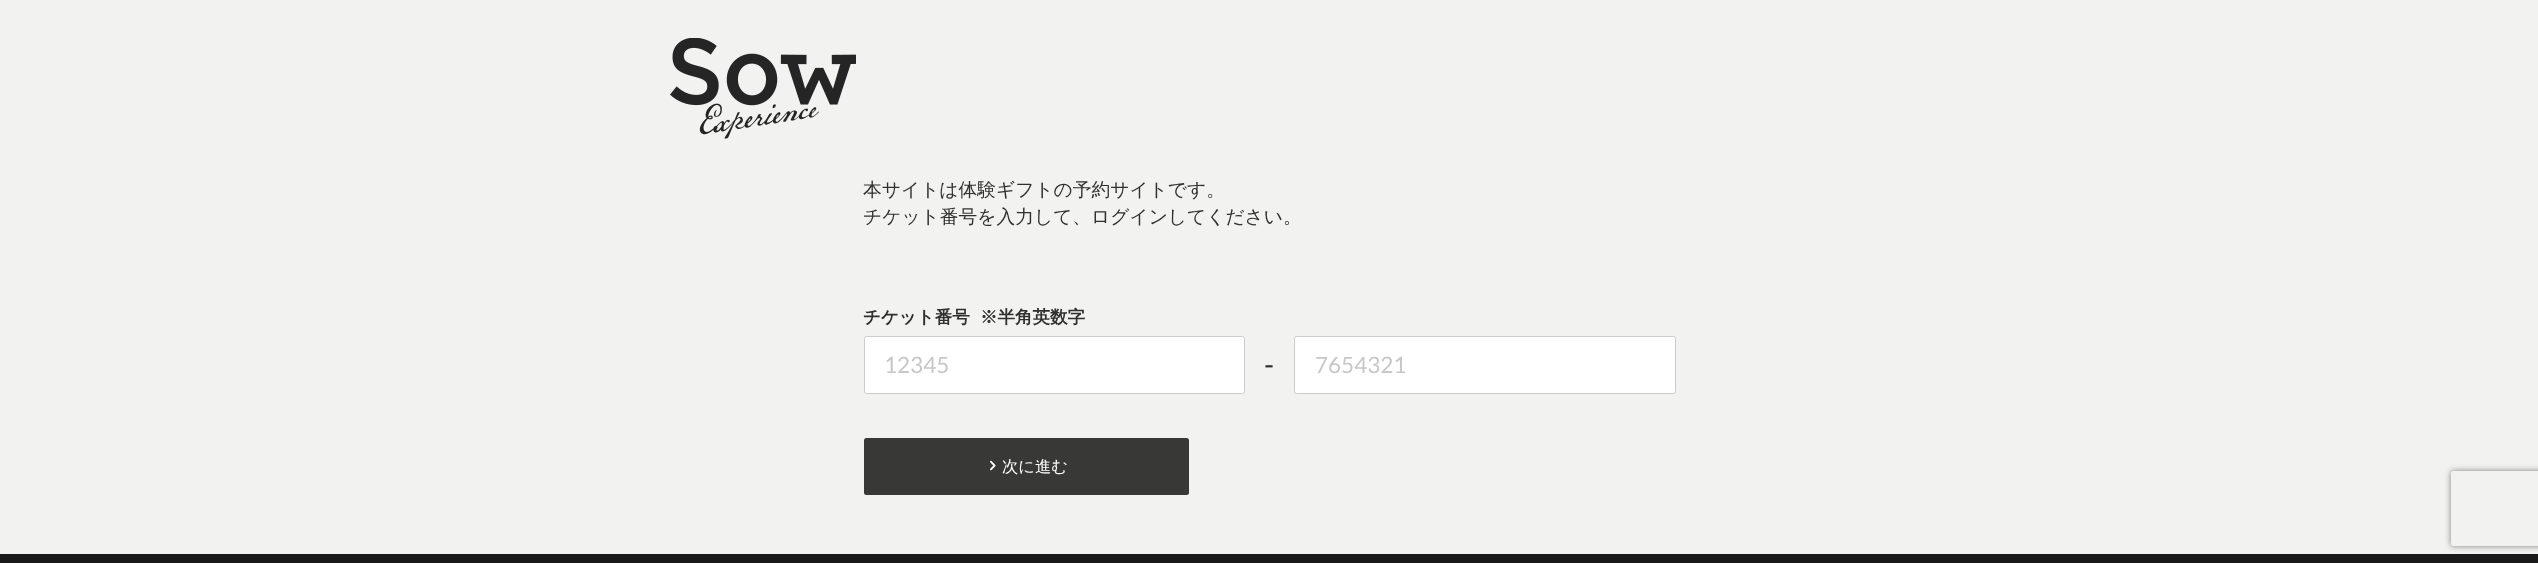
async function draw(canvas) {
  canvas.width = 2538;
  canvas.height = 563;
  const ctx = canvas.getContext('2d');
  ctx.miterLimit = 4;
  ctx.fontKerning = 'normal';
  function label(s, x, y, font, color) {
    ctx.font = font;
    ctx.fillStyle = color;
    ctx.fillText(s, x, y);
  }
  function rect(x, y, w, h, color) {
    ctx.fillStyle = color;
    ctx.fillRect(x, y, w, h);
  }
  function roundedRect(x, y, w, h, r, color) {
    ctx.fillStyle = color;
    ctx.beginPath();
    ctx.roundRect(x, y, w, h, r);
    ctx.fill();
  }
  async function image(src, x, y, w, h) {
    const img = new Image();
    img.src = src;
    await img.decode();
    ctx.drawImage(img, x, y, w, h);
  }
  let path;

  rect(0, 0, 2538, 563, '#f2f2f1');
  await image('assets/img1.png', 670, 38, 186, 101);
  label('本サイトは体験ギフトの予約サイトです。', 863, 196, '500 18.75px WenQuanYi Zen Hei', '#303030');
  label('チケット番号を入力して、ログインしてください。', 863, 223, '500 18.75px WenQuanYi Zen Hei', '#303030');
  label('チケット番号', 863, 323, 'bold 17.5px WenQuanYi Zen Hei', '#303030');
  label('※半角英数字', 980, 323, 'bold 17.5px WenQuanYi Zen Hei', '#303030');
  ctx.fillStyle = '#fff';
  ctx.beginPath();
  ctx.roundRect(864.5, 336.5, 380, 57, 2);
  ctx.fill();
  ctx.strokeStyle = '#ccc';
  ctx.stroke();
  label('12345', 884, 373, '22.5px Lato', '#c7c7c7');
  label('-', 1264, 375, '29px Lato', '#303030');
  ctx.fillStyle = '#fff';
  ctx.beginPath();
  ctx.roundRect(1294.5, 336.5, 381, 57, 2);
  ctx.fill();
  ctx.stroke();
  label('7654321', 1315, 373, '22.5px Lato', '#c7c7c7');
  roundedRect(864, 438, 325, 57, 2.5, '#383837');
  await image('assets/img2.png', 990, 460, 6, 11);
  label('次に進む', 1002, 472, '500 16.25px WenQuanYi Zen Hei', '#fff');
  rect(0, 554, 2538, 9, '#191919');
  ctx.save();
  path = new Path2D('M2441 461H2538V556H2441ZM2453.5 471H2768.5C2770 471 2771 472 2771 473.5V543.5C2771 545 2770 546 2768.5 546H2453.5C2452 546 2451 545 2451 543.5V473.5C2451 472 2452 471 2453.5 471Z');
  ctx.clip(path, 'evenodd');
  ctx.fillStyle = '#808080';
  ctx.filter = 'blur(3px)';
  ctx.beginPath();
  ctx.roundRect(2451, 471, 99, 75, 2.5);
  ctx.fill();
  ctx.filter = 'none';
  ctx.restore();
}

draw(document.querySelector('canvas'));
